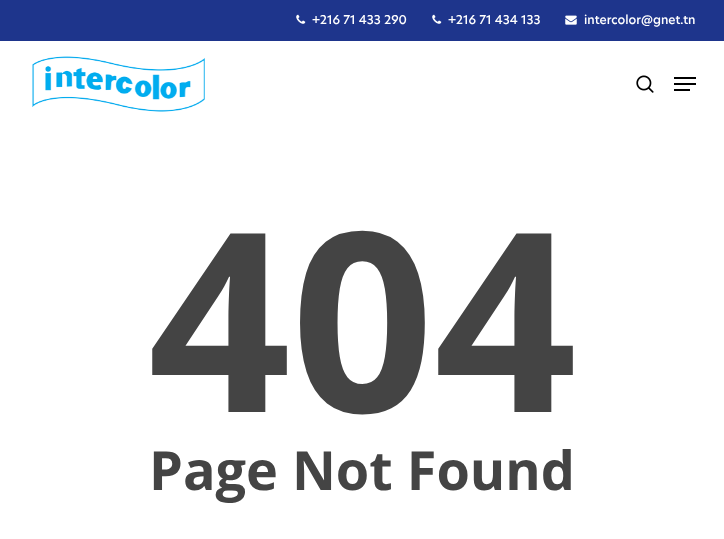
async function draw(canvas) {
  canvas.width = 724;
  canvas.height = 539;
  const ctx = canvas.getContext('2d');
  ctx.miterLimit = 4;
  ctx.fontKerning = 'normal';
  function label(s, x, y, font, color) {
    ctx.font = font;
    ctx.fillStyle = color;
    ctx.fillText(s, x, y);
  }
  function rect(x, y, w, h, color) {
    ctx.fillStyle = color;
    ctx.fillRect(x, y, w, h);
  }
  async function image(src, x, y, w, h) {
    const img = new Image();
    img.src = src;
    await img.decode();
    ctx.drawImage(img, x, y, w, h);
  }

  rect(0, 0, 724, 539, '#fff');
  rect(0, 0, 724, 41, '#1e358c');
  await image('assets/img1.png', 296, 14, 10, 10);
  label('+216 71 433 290', 312, 24, '500 12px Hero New', '#fff');
  await image('assets/img1.png', 432, 14, 10, 10);
  label('+216 71 434 133', 448, 24, '500 12px Hero New', '#fff');
  await image('assets/img2.png', 565, 15, 12, 10);
  label('intercolor@gnet.tn', 584, 24, '500 12px Hero New', '#fff');
  await image('assets/img3.png', 32, 56, 173, 56);
  await image('assets/img4.png', 636, 75, 18, 18);
  rect(674, 77, 22, 2, '#000');
  rect(674, 89, 16, 2, '#000');
  rect(674, 83, 22, 2, '#000');
  label('404', 148, 412, 'bold 250px Open Sans', '#444');
  label('Page Not Found', 149, 490, 'bold 54px Open Sans', '#444');
}

draw(document.querySelector('canvas'));
